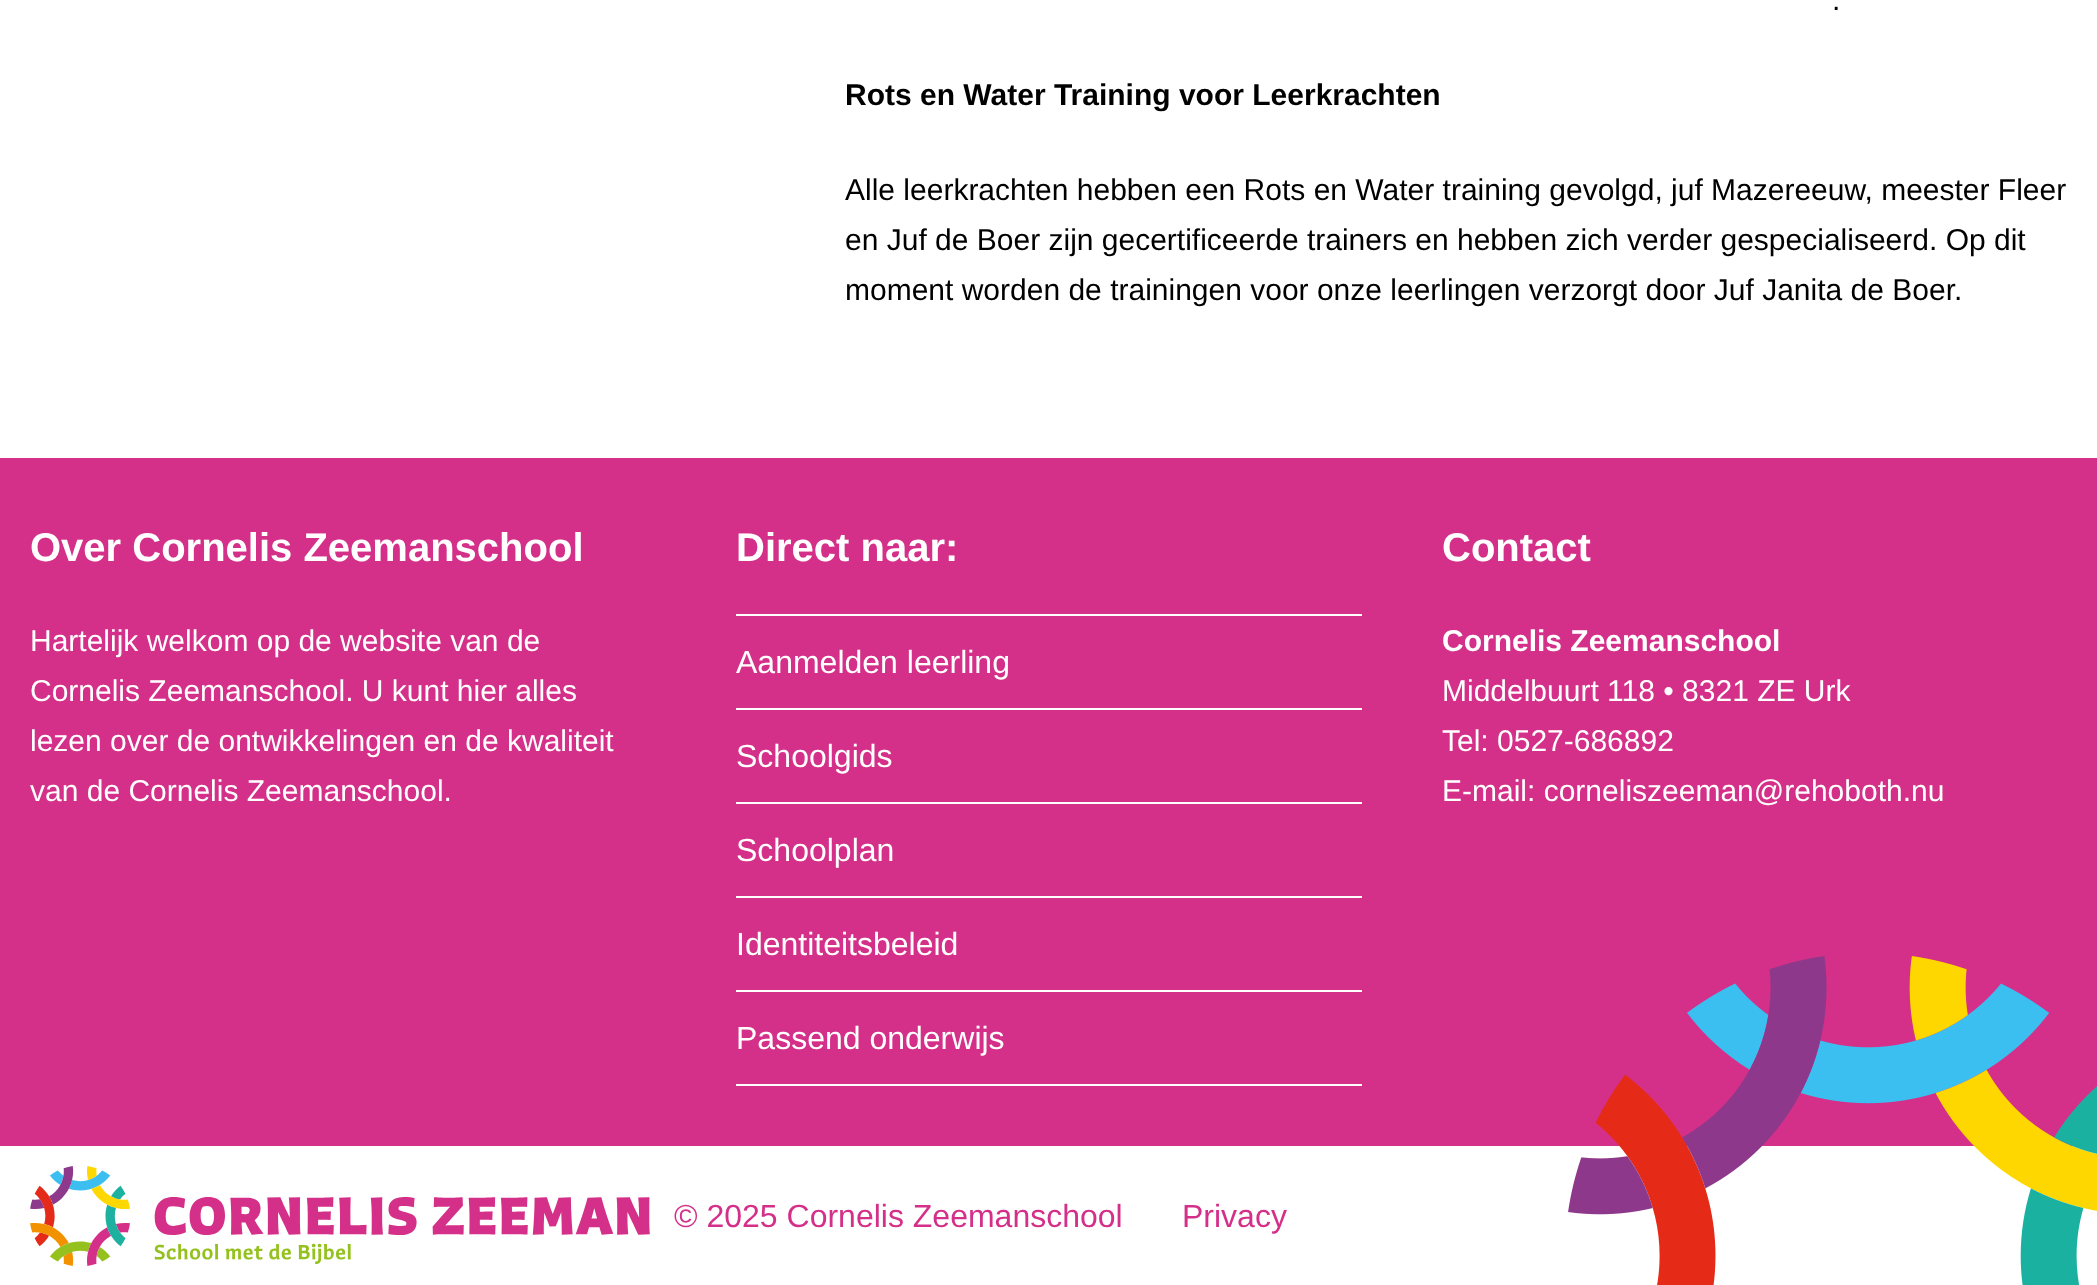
async function draw(canvas) {
  canvas.width = 2097;
  canvas.height = 1285;
  const ctx = canvas.getContext('2d');
  ctx.miterLimit = 4;
  ctx.fontKerning = 'normal';
  function label(s, x, y, font, color) {
    ctx.font = font;
    ctx.fillStyle = color;
    ctx.fillText(s, x, y);
  }
  function rect(x, y, w, h, color) {
    ctx.fillStyle = color;
    ctx.fillRect(x, y, w, h);
  }
  async function image(src, x, y, w, h) {
    const img = new Image();
    img.src = src;
    await img.decode();
    ctx.drawImage(img, x, y, w, h);
  }

  rect(0, 0, 2097, 1285, '#fff');
  label('.', 1832, 10, '30px Liberation Sans', '#000');
  label('Rots en Water Training voor Leerkrachten', 845, 105, 'bold 30px Liberation Sans', '#000');
  label('Alle leerkrachten hebben een Rots en Water training gevolgd, juf Mazereeuw, meester Fleer', 845, 200, '30px Liberation Sans', '#000');
  label('en Juf de Boer zijn gecertificeerde trainers en hebben zich verder gespecialiseerd. Op dit', 845, 250, '30px Liberation Sans', '#000');
  label('moment worden de trainingen voor onze leerlingen verzorgt door Juf Janita de Boer.', 845, 300, '30px Liberation Sans', '#000');
  rect(0, 458, 2097, 688, '#d43089');
  label('Over Cornelis Zeemanschool', 30, 561, 'bold 40px Liberation Sans', '#fff');
  label('Hartelijk welkom op de website van de', 30, 651, '30px Liberation Sans', '#fff');
  label('Cornelis Zeemanschool. U kunt hier alles', 30, 701, '30px Liberation Sans', '#fff');
  label('lezen over de ontwikkelingen en de kwaliteit', 30, 751, '30px Liberation Sans', '#fff');
  label('van de Cornelis Zeemanschool.', 30, 801, '30px Liberation Sans', '#fff');
  label('Direct naar:', 736, 561, 'bold 40px Liberation Sans', '#fff');
  rect(736, 614, 626, 2, '#fff');
  rect(736, 708, 626, 2, '#fff');
  label('Aanmelden leerling', 736, 673, '32px Liberation Sans', '#fff');
  rect(736, 802, 626, 2, '#fff');
  label('Schoolgids', 736, 767, '32px Liberation Sans', '#fff');
  rect(736, 896, 626, 2, '#fff');
  label('Schoolplan', 736, 861, '32px Liberation Sans', '#fff');
  rect(736, 990, 626, 2, '#fff');
  label('Identiteitsbeleid', 736, 955, '32px Liberation Sans', '#fff');
  rect(736, 1084, 626, 2, '#fff');
  label('Passend onderwijs', 736, 1049, '32px Liberation Sans', '#fff');
  label('Contact', 1442, 561, 'bold 40px Liberation Sans', '#fff');
  label('Cornelis Zeemanschool', 1442, 651, 'bold 30px Liberation Sans', '#fff');
  label('Middelbuurt 118 • 8321 ZE Urk', 1442, 701, '30px Liberation Sans', '#fff');
  label('Tel: 0527-686892', 1442, 751, '30px Liberation Sans', '#fff');
  label('E-mail: corneliszeeman@rehoboth.nu', 1442, 801, '30px Liberation Sans', '#fff');
  await image('assets/img1.png', 30, 1166, 620, 100);
  label('© 2025 Cornelis Zeemanschool', 674, 1227, '32px Liberation Sans', '#d43089');
  label('Privacy', 1182, 1227, '32px Liberation Sans', '#d43089');
  await image('assets/img2.png', 1568, 956, 529, 329);
}

draw(document.querySelector('canvas'));
